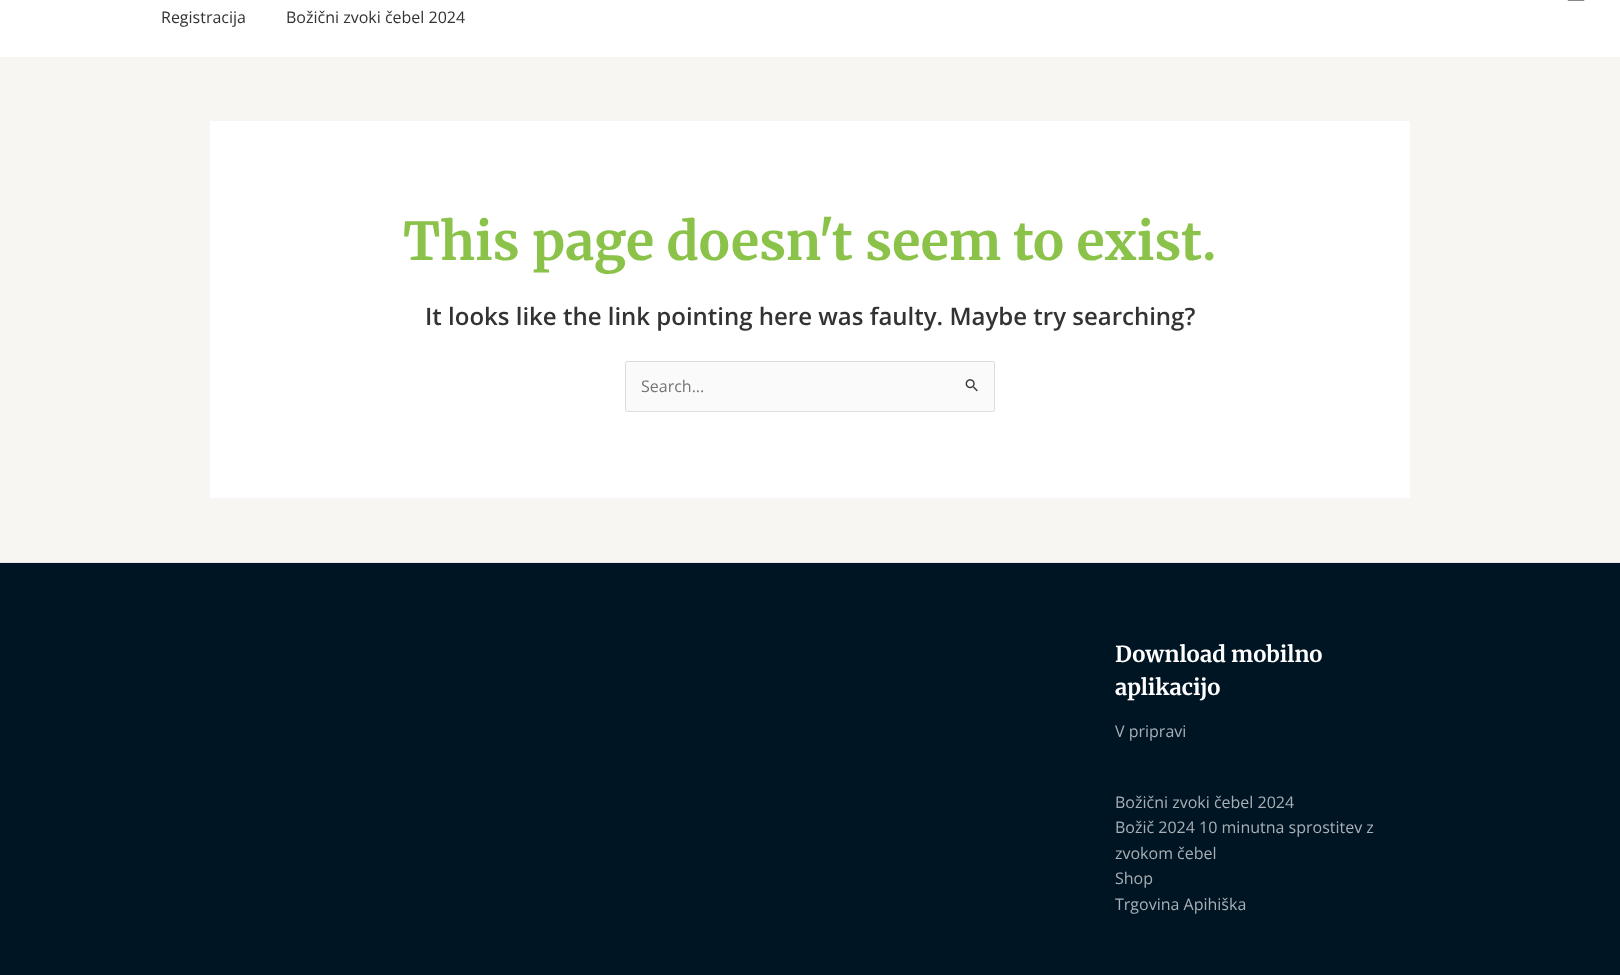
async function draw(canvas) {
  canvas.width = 1620;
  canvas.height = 975;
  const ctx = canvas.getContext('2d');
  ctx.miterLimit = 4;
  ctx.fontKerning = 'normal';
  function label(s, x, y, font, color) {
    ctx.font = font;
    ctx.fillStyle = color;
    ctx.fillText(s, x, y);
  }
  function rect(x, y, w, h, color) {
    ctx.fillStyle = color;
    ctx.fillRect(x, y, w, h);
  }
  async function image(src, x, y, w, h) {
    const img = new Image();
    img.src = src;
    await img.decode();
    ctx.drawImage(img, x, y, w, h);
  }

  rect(0, 0, 1620, 975, '#f8f6f3');
  rect(0, 0, 1620, 57, '#fff');
  await image('assets/img1.png', 1567, 0, 18, 1);
  label('Registracija', 161, 23, '16px Open Sans', '#333');
  label('Božični zvoki čebel 2024', 286, 23, '16px Open Sans', '#333');
  rect(210, 121, 1200, 377, '#fff');
  label('This page doesn\'t seem to exist.', 403, 260, '300 52px Merriweather', '#8bc34a');
  label('It looks like the link pointing here was faulty. Maybe try searching?', 425, 325, '600 24px Open Sans', '#333');
  ctx.fillStyle = '#fafafa';
  ctx.beginPath();
  ctx.roundRect(625.5, 361.5, 369, 50, 1.5);
  ctx.fill();
  ctx.strokeStyle = '#ddd';
  ctx.stroke();
  label('Search...', 641, 392, '16px Open Sans', '#757575');
  await image('assets/img2.png', 965, 379, 13, 13);
  rect(0, 563, 1620, 412, '#001524');
  rect(0, 562, 1620, 1, '#e6e6e6');
  label('Download mobilno', 1115, 662, '300 22px Merriweather', '#fff');
  label('aplikacijo', 1115, 695, '300 22px Merriweather', '#fff');
  label('V pripravi', 1115, 737, '16px Open Sans', '#a8afb5');
  label('Božični zvoki čebel 2024', 1115, 808, '16px Open Sans', '#a8afb5');
  label('Božič 2024 10 minutna sprostitev z', 1115, 833, '16px Open Sans', '#a8afb5');
  label('zvokom čebel', 1115, 859, '16px Open Sans', '#a8afb5');
  label('Shop', 1115, 884, '16px Open Sans', '#a8afb5');
  label('Trgovina Apihiška', 1115, 910, '16px Open Sans', '#a8afb5');
}

draw(document.querySelector('canvas'));
